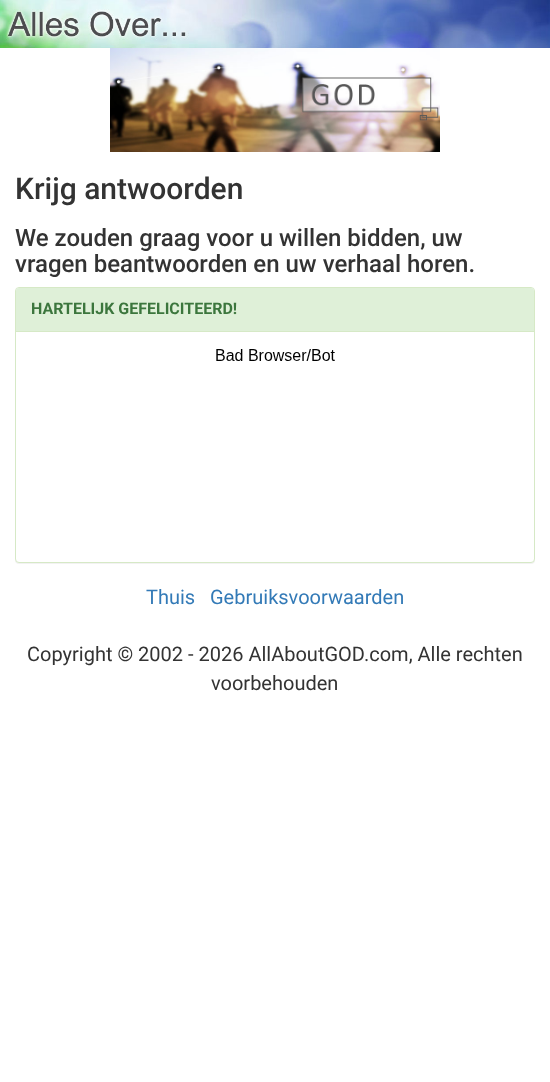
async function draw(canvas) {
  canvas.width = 550;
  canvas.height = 1082;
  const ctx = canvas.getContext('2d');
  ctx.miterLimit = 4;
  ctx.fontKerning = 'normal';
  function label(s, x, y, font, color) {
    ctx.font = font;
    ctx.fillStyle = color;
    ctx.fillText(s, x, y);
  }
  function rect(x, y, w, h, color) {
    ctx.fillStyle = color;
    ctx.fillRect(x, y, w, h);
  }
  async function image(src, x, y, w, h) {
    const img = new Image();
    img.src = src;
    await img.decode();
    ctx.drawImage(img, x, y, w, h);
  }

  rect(0, 0, 550, 1082, '#fff');
  await image('assets/img1.png', 0, 0, 550, 48);
  await image('assets/img2.png', 110, 48, 330, 104);
  label('Krijg antwoorden', 15, 199, '500 30px Roboto', '#333');
  label('We zouden graag voor u willen bidden, uw', 15, 246, '500 24px Roboto', '#333');
  label('vragen beantwoorden en uw verhaal horen.', 15, 272, '500 24px Roboto', '#333');
  ctx.fillStyle = '#0000000d';
  ctx.filter = 'blur(0.5px)';
  ctx.beginPath();
  ctx.roundRect(15, 288, 520, 276, 4);
  ctx.fill();
  ctx.filter = 'none';
  ctx.fillStyle = '#fff';
  ctx.beginPath();
  ctx.roundRect(15.5, 287.5, 519, 275, 3.5);
  ctx.fill();
  ctx.strokeStyle = '#d6e9c6';
  ctx.stroke();
  ctx.fillStyle = '#dff0d8';
  ctx.beginPath();
  ctx.roundRect(16, 288, 518, 44, [3, 3, 0, 0]);
  ctx.fill();
  rect(16, 331, 518, 1, '#d6e9c6');
  label('HARTELIJK GEFELICITEERD!', 31, 314, 'bold 16px Roboto', '#3c763d');
  await image('assets/img3.png', 216, 349, 119, 12);
  label('Thuis', 146, 604, '20px Roboto', '#337ab7');
  label('Gebruiksvoorwaarden', 210, 604, '20px Roboto', '#337ab7');
  label('Copyright © 2002 - 2026 AllAboutGOD.com, Alle rechten', 27, 661, '20px Roboto', '#333');
  label('voorbehouden', 211, 690, '20px Roboto', '#333');
}

draw(document.querySelector('canvas'));
